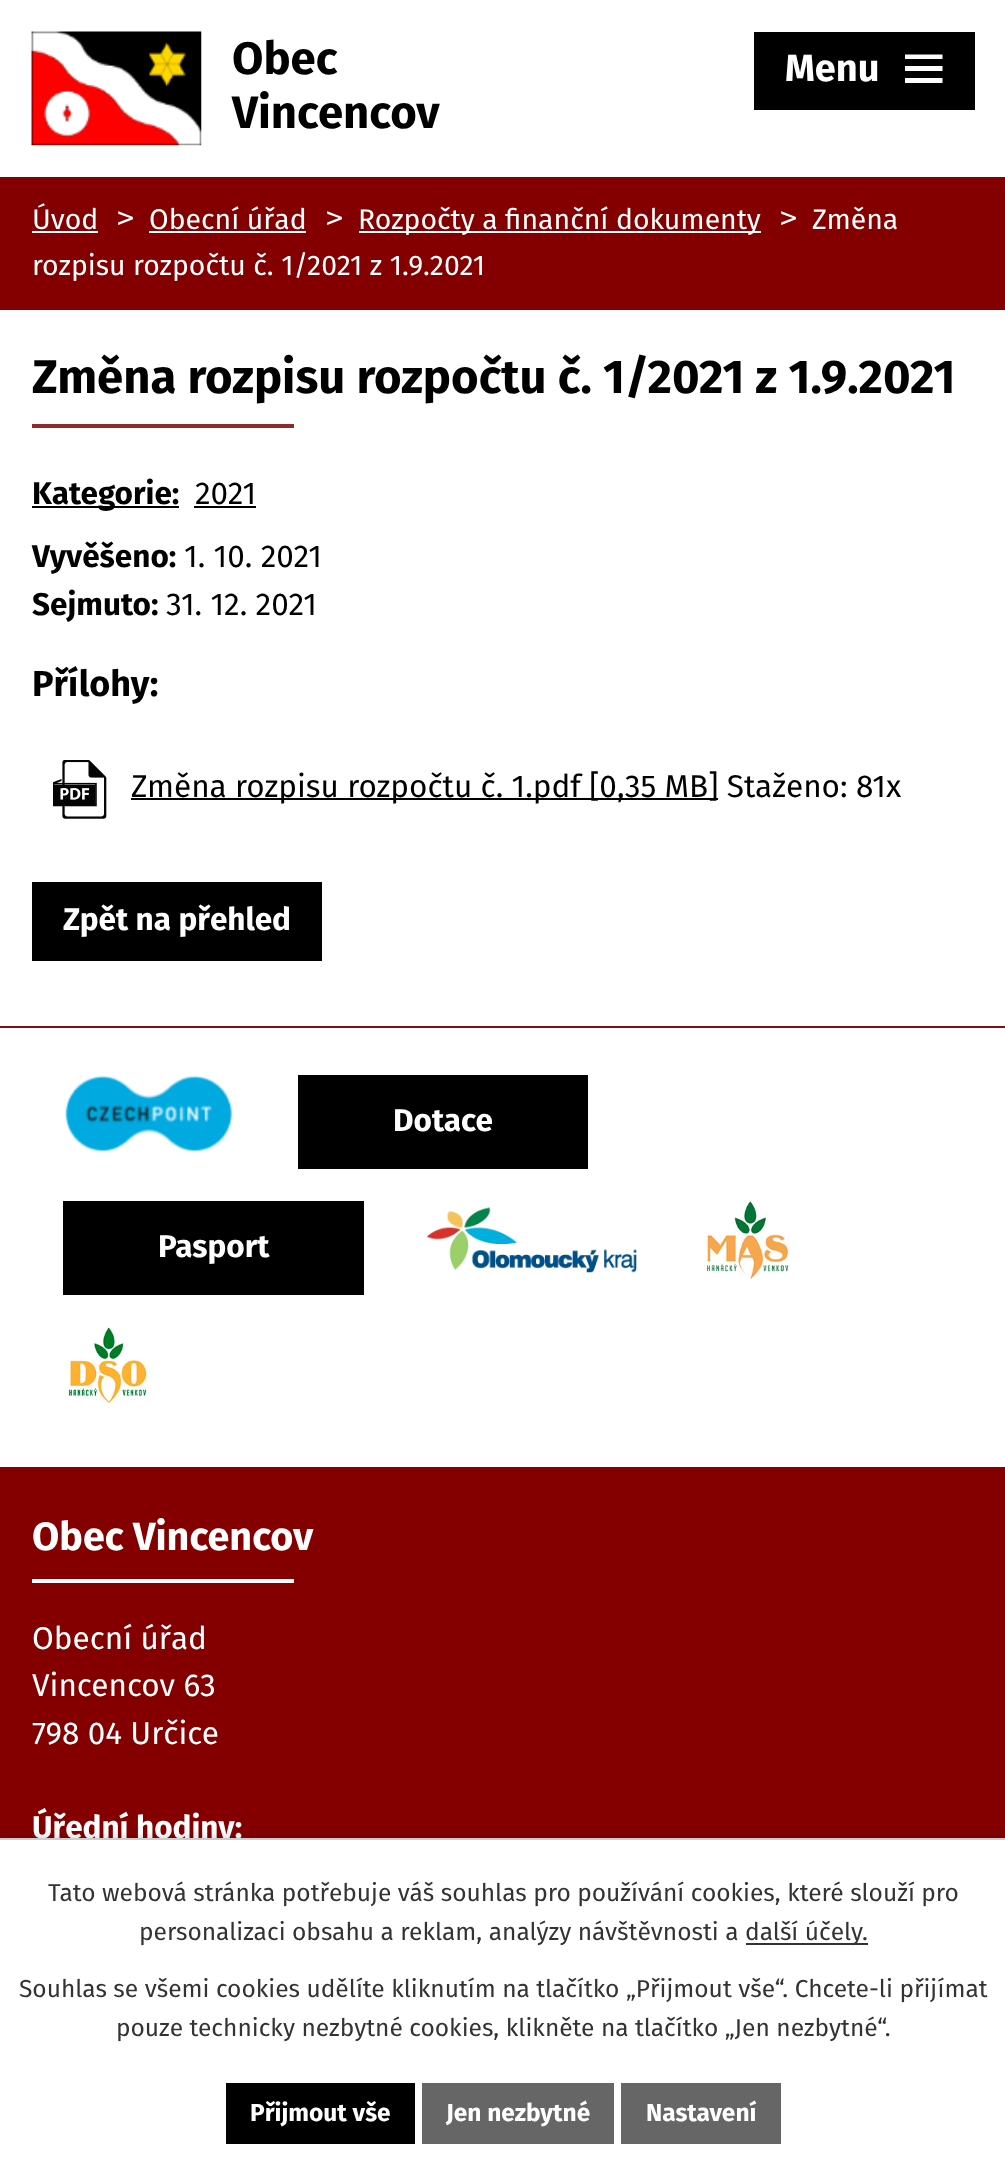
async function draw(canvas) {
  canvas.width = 1005;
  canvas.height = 2176;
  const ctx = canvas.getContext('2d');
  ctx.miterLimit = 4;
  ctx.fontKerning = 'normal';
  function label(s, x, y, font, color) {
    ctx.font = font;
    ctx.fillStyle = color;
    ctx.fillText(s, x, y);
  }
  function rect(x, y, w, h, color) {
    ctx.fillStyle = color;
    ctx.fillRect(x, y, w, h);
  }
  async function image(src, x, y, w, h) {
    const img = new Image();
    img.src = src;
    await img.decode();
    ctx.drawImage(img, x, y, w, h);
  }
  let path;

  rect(0, 0, 1005, 2176, '#fff');
  await image('assets/img1.png', 31, 31, 171, 115);
  label('Obec', 232, 74, 'bold 45.5px Fira Sans', '#000');
  label('Vincencov', 232, 128, 'bold 45.5px Fira Sans', '#000');
  rect(754, 32, 221, 78, '#000');
  label('Menu', 785, 81, 'bold 38px Fira Sans', '#fff');
  path = new Path2D('M905 83V78H942.5V83ZM905 54.5H942.5V59H905ZM905 71V66H942.5V71Z');
  ctx.fill(path);
  rect(0, 177, 1005, 133, '#840000');
  label('Úvod', 32, 229, '28.4px Fira Sans', '#fff');
  rect(32, 231, 66, 2, '#fff');
  label('>', 117, 227, '28.4px DejaVu Sans Mono', '#fff');
  label('Obecní úřad', 149, 229, '28.4px Fira Sans', '#fff');
  rect(149, 231, 157, 2, '#fff');
  label('>', 326, 227, '28.4px DejaVu Sans Mono', '#fff');
  rect(359, 231, 402, 2, '#fff');
  label('Rozpočty a finanční dokumenty', 358, 229, '28.4px Fira Sans', '#fff');
  label('>', 780, 227, '28.4px DejaVu Sans Mono', '#fff');
  label('Změna', 812, 229, '28.4px Fira Sans', '#fff');
  label('rozpisu rozpočtu č. 1/2021 z 1.9.2021', 32, 275, '28.4px Fira Sans', '#fff');
  label('Změna rozpisu rozpočtu č. 1/2021 z 1.9.2021', 32, 393, 'bold 47.25px Fira Sans', '#000');
  rect(32, 424, 262, 4, '#922a29');
  rect(32, 506, 147, 2, '#000');
  label('Kategorie:', 32, 504, 'bold 31.5px Fira Sans', '#000');
  label('2021', 195, 504, '31.5px Fira Sans', '#000');
  rect(194, 506, 62, 2, '#000');
  label('Vyvěšeno:', 32, 567, 'bold 31.5px Fira Sans', '#000');
  label('1. 10. 2021', 184, 567, '31.5px Fira Sans', '#000');
  label('Sejmuto:', 32, 615, 'bold 31.5px Fira Sans', '#000');
  label('31. 12. 2021', 166, 615, '31.5px Fira Sans', '#000');
  label('Přílohy:', 32, 696, 'bold 36px Fira Sans', '#000');
  await image('assets/img2.png', 53, 760, 54, 59);
  rect(131, 798, 587, 2, '#000');
  label('Změna rozpisu rozpočtu č. 1.pdf [0,35 MB] Staženo: 81x', 131, 797, '31.5px Fira Sans', '#000');
  rect(32, 882, 290, 79, '#000');
  label('Zpět na přehled', 63, 930, 'bold 31.5px Fira Sans', '#fff');
  rect(0, 1026, 1005, 2, '#840f0e');
  await image('assets/img3.png', 65, 1075, 168, 78);
  rect(298, 1075, 290, 94, '#000');
  label('Dotace', 393, 1131, 'bold 31.5px Fira Sans', '#fff');
  rect(63, 1201, 301, 94, '#000');
  label('Pasport', 158, 1257, 'bold 31.5px Fira Sans', '#fff');
  await image('assets/img4.png', 427, 1207, 210, 66);
  await image('assets/img5.png', 706, 1200, 83, 80);
  await image('assets/img6.png', 68, 1326, 82, 77);
  rect(0, 1467, 1005, 371, '#840000');
  label('Obec Vincencov', 32, 1550, 'bold 39.5px Fira Sans', '#fff');
  rect(32, 1579, 262, 4, '#fff');
  label('Obecní úřad', 32, 1649, '31.5px Fira Sans', '#fff');
  label('Vincencov 63', 32, 1696, '31.5px Fira Sans', '#fff');
  label('798 04 Určice', 32, 1744, '31.5px Fira Sans', '#fff');
  label('Úřední hodiny:', 32, 1838, 'bold 31.5px Fira Sans', '#fff');
  ctx.fillStyle = '#00000033';
  ctx.filter = 'blur(4.5px)';
  ctx.beginPath();
  ctx.rect(0, 1838, 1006, 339);
  ctx.fill();
  ctx.filter = 'none';
  rect(0, 1840, 1005, 336, '#fff');
  rect(0, 1838, 1005, 2, '#ccc');
  label('Tato webová stránka potřebuje váš souhlas pro používání cookies, které slouží pro', 48, 1901, '24.5px Fira Sans', '#333');
  label('personalizaci obsahu a reklam, analýzy návštěvnosti a', 139, 1940, '24.5px Fira Sans', '#333');
  rect(746, 1943, 122, 2, '#333');
  label('další účely.', 745, 1940, '24.5px Fira Sans', '#333');
  label('Souhlas se všemi cookies udělíte kliknutím na tlačítko „Přijmout vše“. Chcete-li přijímat', 19, 1997, '24.5px Fira Sans', '#333');
  label('pouze technicky nezbytné cookies, klikněte na tlačítko „Jen nezbytné“.', 116, 2036, '24.5px Fira Sans', '#333');
  rect(226, 2083, 189, 61, '#000');
  label('Přijmout vše', 250, 2121, 'bold 24.5px Fira Sans', '#fff');
  rect(422, 2083, 192, 61, '#666');
  label('Jen nezbytné', 446, 2121, 'bold 24.5px Fira Sans', '#fff');
  rect(621, 2083, 160, 61, '#666');
  label('Nastavení', 646, 2121, 'bold 24.5px Fira Sans', '#fff');
}

draw(document.querySelector('canvas'));
